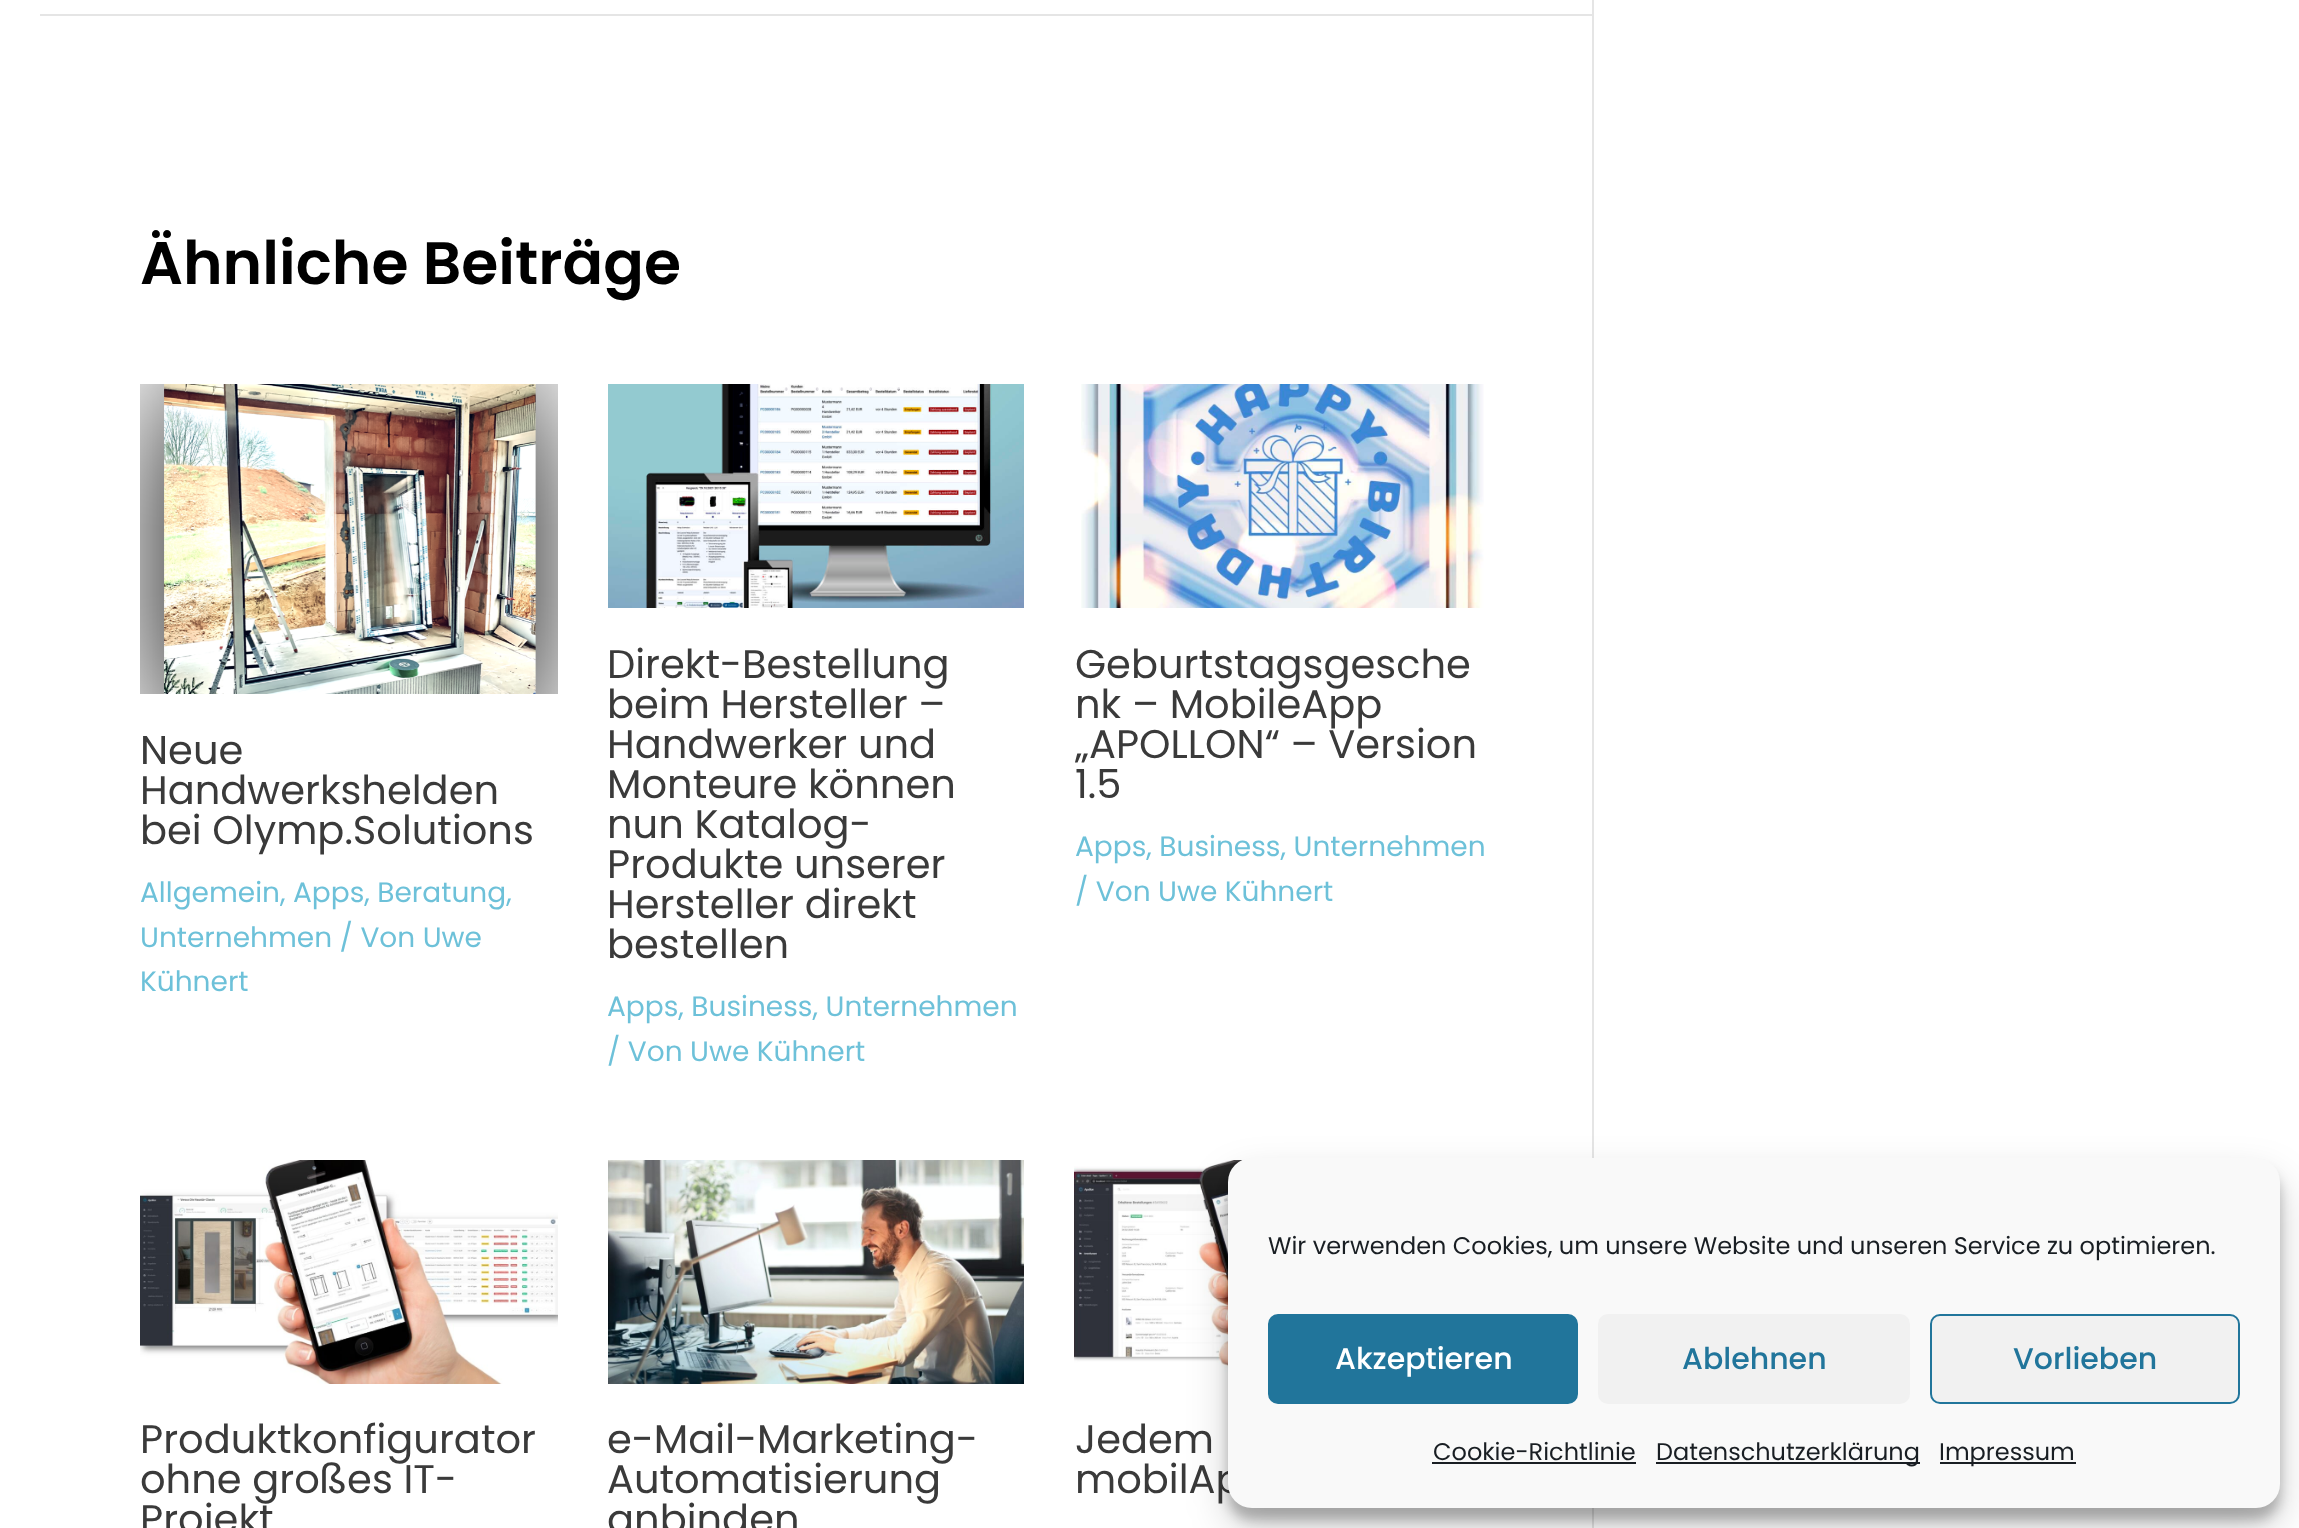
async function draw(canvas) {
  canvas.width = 2299;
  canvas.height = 1528;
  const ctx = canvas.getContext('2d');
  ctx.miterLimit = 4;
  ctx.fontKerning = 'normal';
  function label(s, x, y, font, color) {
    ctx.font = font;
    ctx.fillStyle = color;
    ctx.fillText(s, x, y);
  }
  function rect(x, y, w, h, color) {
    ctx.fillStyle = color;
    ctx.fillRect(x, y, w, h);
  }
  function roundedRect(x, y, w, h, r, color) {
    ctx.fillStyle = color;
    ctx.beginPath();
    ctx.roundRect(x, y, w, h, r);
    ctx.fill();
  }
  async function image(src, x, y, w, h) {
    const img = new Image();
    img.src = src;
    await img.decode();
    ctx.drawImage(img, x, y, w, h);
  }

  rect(0, 0, 2299, 1528, '#fff');
  rect(1592, 0, 2, 1528, '#e5e5e5');
  rect(40, 14, 1552, 2, '#e5e5e5');
  label('Ähnliche Beiträge', 140, 284, '600 60px Poppins', '#000');
  await image('assets/img1.png', 140, 384, 418, 310);
  label('Neue', 140, 764, '40px Poppins', '#3a3a3a');
  label('Handwerkshelden', 140, 804, '40px Poppins', '#3a3a3a');
  label('bei Olymp.Solutions', 140, 844, '40px Poppins', '#3a3a3a');
  label('Allgemein, Apps, Beratung,', 140, 902, '28px Poppins', '#6dc1d9');
  label('Unternehmen / Von Uwe', 140, 947, '28px Poppins', '#6dc1d9');
  label('Kühnert', 140, 991, '28px Poppins', '#6dc1d9');
  await image('assets/img2.png', 608, 384, 416, 224);
  label('Direkt-Bestellung', 607, 678, '40px Poppins', '#3a3a3a');
  label('beim Hersteller –', 607, 718, '40px Poppins', '#3a3a3a');
  label('Handwerker und', 607, 758, '40px Poppins', '#3a3a3a');
  label('Monteure können', 607, 798, '40px Poppins', '#3a3a3a');
  label('nun Katalog-', 607, 838, '40px Poppins', '#3a3a3a');
  label('Produkte unserer', 607, 878, '40px Poppins', '#3a3a3a');
  label('Hersteller direkt', 607, 918, '40px Poppins', '#3a3a3a');
  label('bestellen', 607, 958, '40px Poppins', '#3a3a3a');
  label('Apps, Business, Unternehmen', 607, 1016, '28px Poppins', '#6dc1d9');
  label('/ Von Uwe Kühnert', 607, 1061, '28px Poppins', '#6dc1d9');
  await image('assets/img3.png', 1081, 384, 403, 224);
  label('Geburtstagsgesche', 1075, 678, '40px Poppins', '#3a3a3a');
  label('nk – MobileApp', 1075, 718, '40px Poppins', '#3a3a3a');
  label('„APOLLON“ – Version', 1075, 758, '40px Poppins', '#3a3a3a');
  label('1.5', 1075, 798, '40px Poppins', '#3a3a3a');
  label('Apps, Business, Unternehmen', 1075, 856, '28px Poppins', '#6dc1d9');
  label('/ Von Uwe Kühnert', 1075, 901, '28px Poppins', '#6dc1d9');
  await image('assets/img4.png', 140, 1160, 418, 224);
  label('Produktkonfigurator', 140, 1453, '40px Poppins', '#3a3a3a');
  label('ohne großes IT-', 140, 1493, '40px Poppins', '#3a3a3a');
  label('Projekt', 140, 1533, '40px Poppins', '#3a3a3a');
  await image('assets/img5.png', 608, 1160, 416, 224);
  label('e-Mail-Marketing-', 607, 1453, '40px Poppins', '#3a3a3a');
  label('Automatisierung', 607, 1493, '40px Poppins', '#3a3a3a');
  label('anbinden', 607, 1533, '40px Poppins', '#3a3a3a');
  await image('assets/img6.png', 1074, 1160, 169, 224);
  label('Jedem', 1075, 1453, '40px Poppins', '#3a3a3a');
  label('mobilAp', 1075, 1493, '40px Poppins', '#3a3a3a');
  ctx.fillStyle = '#0000003b';
  ctx.filter = 'blur(6px)';
  ctx.beginPath();
  ctx.roundRect(1228, 1170, 1052, 350, 24);
  ctx.fill();
  ctx.filter = 'none';
  ctx.fillStyle = '#00000030';
  ctx.filter = 'blur(20px)';
  ctx.beginPath();
  ctx.roundRect(1228, 1178, 1052, 350, 24);
  ctx.fill();
  ctx.filter = 'none';
  roundedRect(1228, 1158, 1052, 350, 24, '#f9f9f9');
  label('Wir verwenden Cookies, um unsere Website und unseren Service zu optimieren.', 1268, 1254, '24px Poppins', '#191e23');
  ctx.fillStyle = '#21759b';
  ctx.beginPath();
  ctx.roundRect(1269, 1315, 308, 88, 9);
  ctx.fill();
  ctx.strokeStyle = '#21759b';
  ctx.lineWidth = 2;
  ctx.stroke();
  label('Akzeptieren', 1335, 1369, '500 30px Poppins', '#fff');
  roundedRect(1598, 1314, 312, 90, 10, '#f1f1f1');
  label('Ablehnen', 1682, 1369, '500 30px Poppins', '#21759b');
  ctx.fillStyle = '#f1f1f1';
  ctx.beginPath();
  ctx.roundRect(1931, 1315, 308, 88, 9);
  ctx.fill();
  ctx.stroke();
  label('Vorlieben', 2013, 1369, '500 30px Poppins', '#21759b');
  label('Cookie-Richtlinie', 1433, 1460, '24px Poppins', '#191e23');
  rect(1432, 1462, 204, 2, '#191e23');
  rect(1656, 1462, 264, 2, '#191e23');
  label('Datenschutzerklärung', 1656, 1460, '24px Poppins', '#191e23');
  rect(1940, 1462, 136, 2, '#191e23');
  label('Impressum', 1939, 1460, '24px Poppins', '#191e23');
}

draw(document.querySelector('canvas'));
